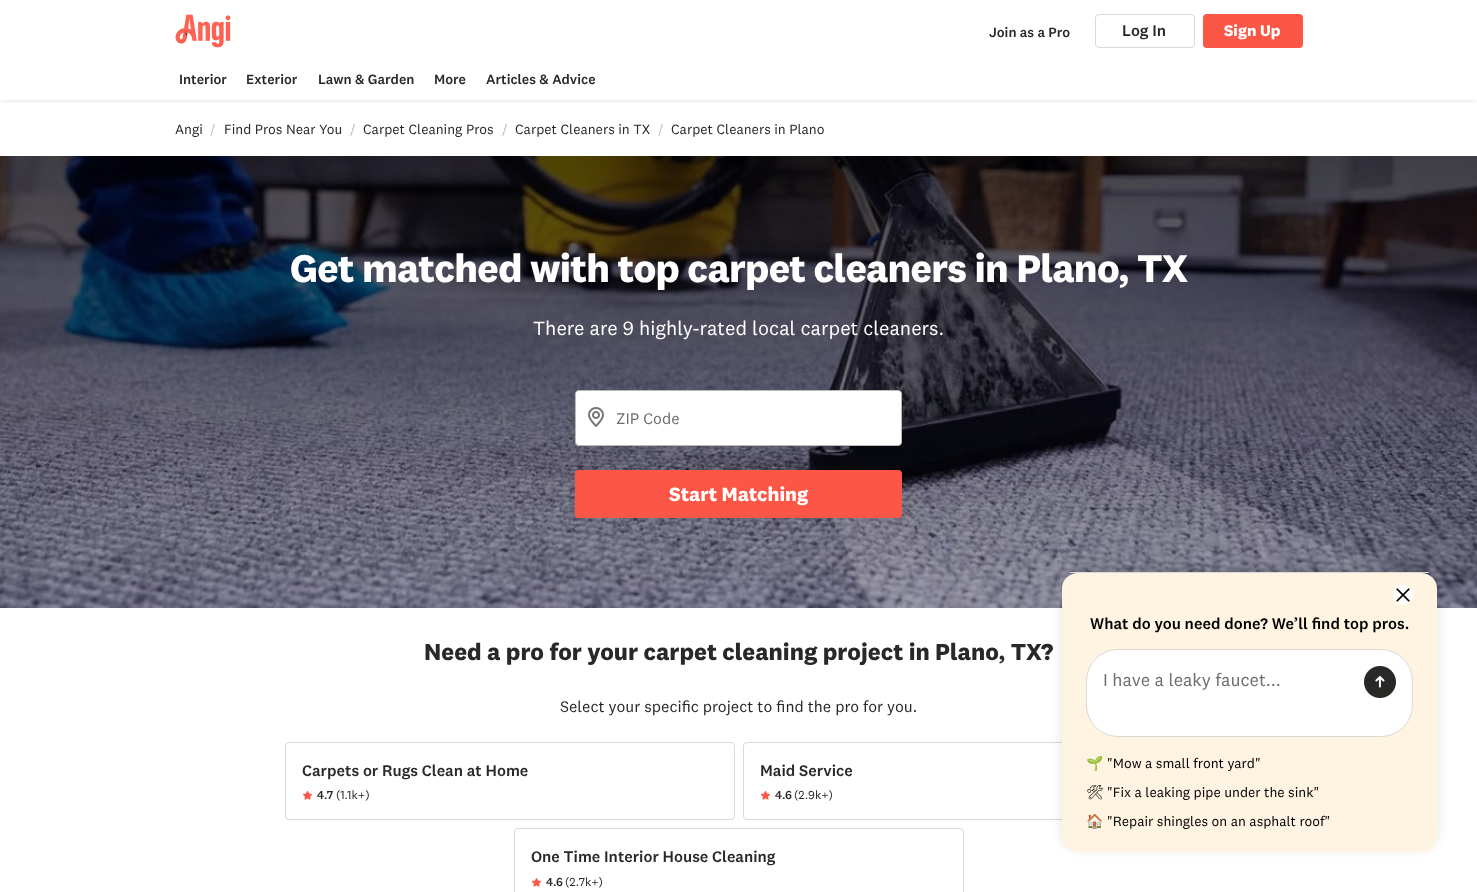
async function draw(canvas) {
  canvas.width = 1477;
  canvas.height = 892;
  const ctx = canvas.getContext('2d');
  ctx.miterLimit = 4;
  ctx.fontKerning = 'normal';
  function label(s, x, y, font, color) {
    ctx.font = font;
    ctx.fillStyle = color;
    ctx.fillText(s, x, y);
  }
  function rect(x, y, w, h, color) {
    ctx.fillStyle = color;
    ctx.fillRect(x, y, w, h);
  }
  function roundedRect(x, y, w, h, r, color) {
    ctx.fillStyle = color;
    ctx.beginPath();
    ctx.roundRect(x, y, w, h, r);
    ctx.fill();
  }
  async function image(src, x, y, w, h) {
    const img = new Image();
    img.src = src;
    await img.decode();
    ctx.drawImage(img, x, y, w, h);
  }
  let path;

  rect(0, 0, 1477, 892, '#fff');
  await image('assets/img1.png', 175, 14, 56, 34);
  label('Join as a Pro', 989, 37, '500 14px "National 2"', '#282827');
  ctx.beginPath();
  ctx.roundRect(1095.5, 14.5, 99, 33, 3.5);
  ctx.strokeStyle = '#dbd9d4';
  ctx.stroke();
  label('Log In', 1122, 36, '500 16px "National 2"', '#282827');
  roundedRect(1203, 14, 100, 34, 4, '#fc5647');
  label('Sign Up', 1224, 36, 'bold 16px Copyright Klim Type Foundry', '#fff');
  ctx.save();
  ctx.beginPath();
  ctx.rect(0, 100, 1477, 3);
  ctx.clip();
  ctx.fillStyle = '#00000014';
  ctx.filter = 'blur(2px)';
  ctx.beginPath();
  ctx.rect(1, 70, 1475, 32);
  ctx.fill();
  ctx.filter = 'none';
  ctx.restore();
  label('Interior', 179, 84, '500 14px "National 2"', '#282827');
  label('Exterior', 246, 84, '500 14px "National 2"', '#282827');
  label('Lawn & Garden', 318, 84, '500 14px "National 2"', '#282827');
  label('More', 434, 84, '500 14px "National 2"', '#282827');
  label('Articles & Advice', 486, 84, '500 14px "National 2"', '#282827');
  label('Angi', 175, 134, '14px Copyright Klim Type Foundry', '#282827');
  label('/', 210, 134, '14px Copyright Klim Type Foundry', '#bcb9b4');
  label('Find Pros Near You', 224, 134, '14px Copyright Klim Type Foundry', '#282827');
  label('/', 350, 134, '14px Copyright Klim Type Foundry', '#bcb9b4');
  label('Carpet Cleaning Pros', 363, 134, '14px Copyright Klim Type Foundry', '#282827');
  label('/', 502, 134, '14px Copyright Klim Type Foundry', '#bcb9b4');
  label('Carpet Cleaners in TX', 515, 134, '14px Copyright Klim Type Foundry', '#282827');
  label('/', 658, 134, '14px Copyright Klim Type Foundry', '#bcb9b4');
  label('Carpet Cleaners in Plano', 671, 134, '14px Copyright Klim Type Foundry', '#282827');
  await image('assets/img2.png', 0, 156, 1477, 452);
  ctx.letterSpacing = '-0.75px';
  label('Get matched with top carpet cleaners in Plano, TX', 290, 282, 'bold 40px Copyright Klim Type Foundry', '#fff');
  ctx.letterSpacing = '0px';
  label('There are 9 highly-rated local carpet cleaners.', 533, 335, '20px Copyright Klim Type Foundry', '#fff');
  ctx.beginPath();
  ctx.roundRect(575.5, 390.5, 326, 55, 3.5);
  ctx.fill();
  ctx.strokeStyle = '#bcb9b4';
  ctx.stroke();
  roundedRect(576, 391, 325, 53, 4, '#fff');
  await image('assets/img3.png', 588, 407, 16, 20);
  label('ZIP Code', 616, 424, '16px Copyright Klim Type Foundry', '#6d6d6d');
  roundedRect(575, 470, 327, 48, 4, '#fc5647');
  label('Start Matching', 669, 501, 'bold 20px Copyright Klim Type Foundry', '#fff');
  label('Need a pro for your carpet cleaning project in Plano, TX?', 424, 660, 'bold 24px Copyright Klim Type Foundry', '#282827');
  label('Select your specific project to find the pro for you.', 560, 712, '16px Copyright Klim Type Foundry', '#282827');
  ctx.beginPath();
  ctx.roundRect(285.5, 742.5, 449, 77, 3.5);
  ctx.strokeStyle = '#dbd9d4';
  ctx.stroke();
  label('Carpets or Rugs Clean at Home', 302, 776, '500 16px "National 2"', '#282827');
  await image('assets/img4.png', 302, 791, 11, 9);
  label('4.7', 317, 799, '500 12px "National 2"', '#282827');
  label('(1.1k+)', 336, 799, '12px Copyright Klim Type Foundry', '#282827');
  ctx.beginPath();
  ctx.roundRect(743.5, 742.5, 449, 77, 3.5);
  ctx.stroke();
  label('Maid Service', 760, 776, '500 16px "National 2"', '#282827');
  await image('assets/img4.png', 760, 791, 11, 9);
  label('4.6', 775, 799, '500 12px "National 2"', '#282827');
  label('(2.9k+)', 794, 799, '12px Copyright Klim Type Foundry', '#282827');
  ctx.beginPath();
  ctx.roundRect(514.5, 828.5, 449, 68, 3.5);
  ctx.stroke();
  label('One Time Interior House Cleaning', 531, 862, '500 16px "National 2"', '#282827');
  await image('assets/img4.png', 531, 878, 11, 9);
  label('4.6', 546, 886, '500 12px "National 2"', '#282827');
  label('(2.7k+)', 565, 886, '12px Copyright Klim Type Foundry', '#282827');
  ctx.fillStyle = '#0000001f';
  ctx.filter = 'blur(6px)';
  ctx.beginPath();
  ctx.roundRect(1062, 568, 375, 280, 16);
  ctx.fill();
  ctx.filter = 'none';
  ctx.fillStyle = '#fff4e2';
  path = new Path2D('M1078 573H1421C1430 573 1437 580 1437 588V836C1437 845 1430 852 1421 852H1078C1069 852 1062 845 1062 836V588C1062 580 1069 573 1078 573Z');
  ctx.fill(path);
  rect(1070, 572, 359, 1, '#dbd9d4');
  ctx.fillStyle = '#fff';
  ctx.beginPath();
  ctx.arc(1403, 595, 10, 0, 2 * Math.PI);
  ctx.fill();
  await image('assets/img5.png', 1396, 588, 14, 14);
  label('What do you need done? We’ll find top pros.', 1090, 629, '500 16px "National 2"', '#000');
  ctx.fillStyle = '#fff';
  ctx.beginPath();
  ctx.roundRect(1086.5, 649.5, 326, 87, 31.5);
  ctx.fill();
  ctx.stroke();
  label('I have a leaky faucet...', 1103, 686, '18px Copyright Klim Type Foundry', '#6d6d6d');
  await image('assets/img6.png', 1364, 666, 32, 32);
  label('🌱', 1086, 768, '14px Noto Color Emoji', '#000');
  label('"Mow a small front yard"', 1107, 768, '14px Copyright Klim Type Foundry', '#000');
  label('🛠', 1086, 797, '14px Noto Emoji', '#000');
  label('"Fix a leaking pipe under the sink"', 1107, 797, '14px Copyright Klim Type Foundry', '#000');
  label('🏠', 1086, 826, '14px Noto Color Emoji', '#000');
  label('"Repair shingles on an asphalt roof"', 1107, 826, '14px Copyright Klim Type Foundry', '#000');
}

draw(document.querySelector('canvas'));
